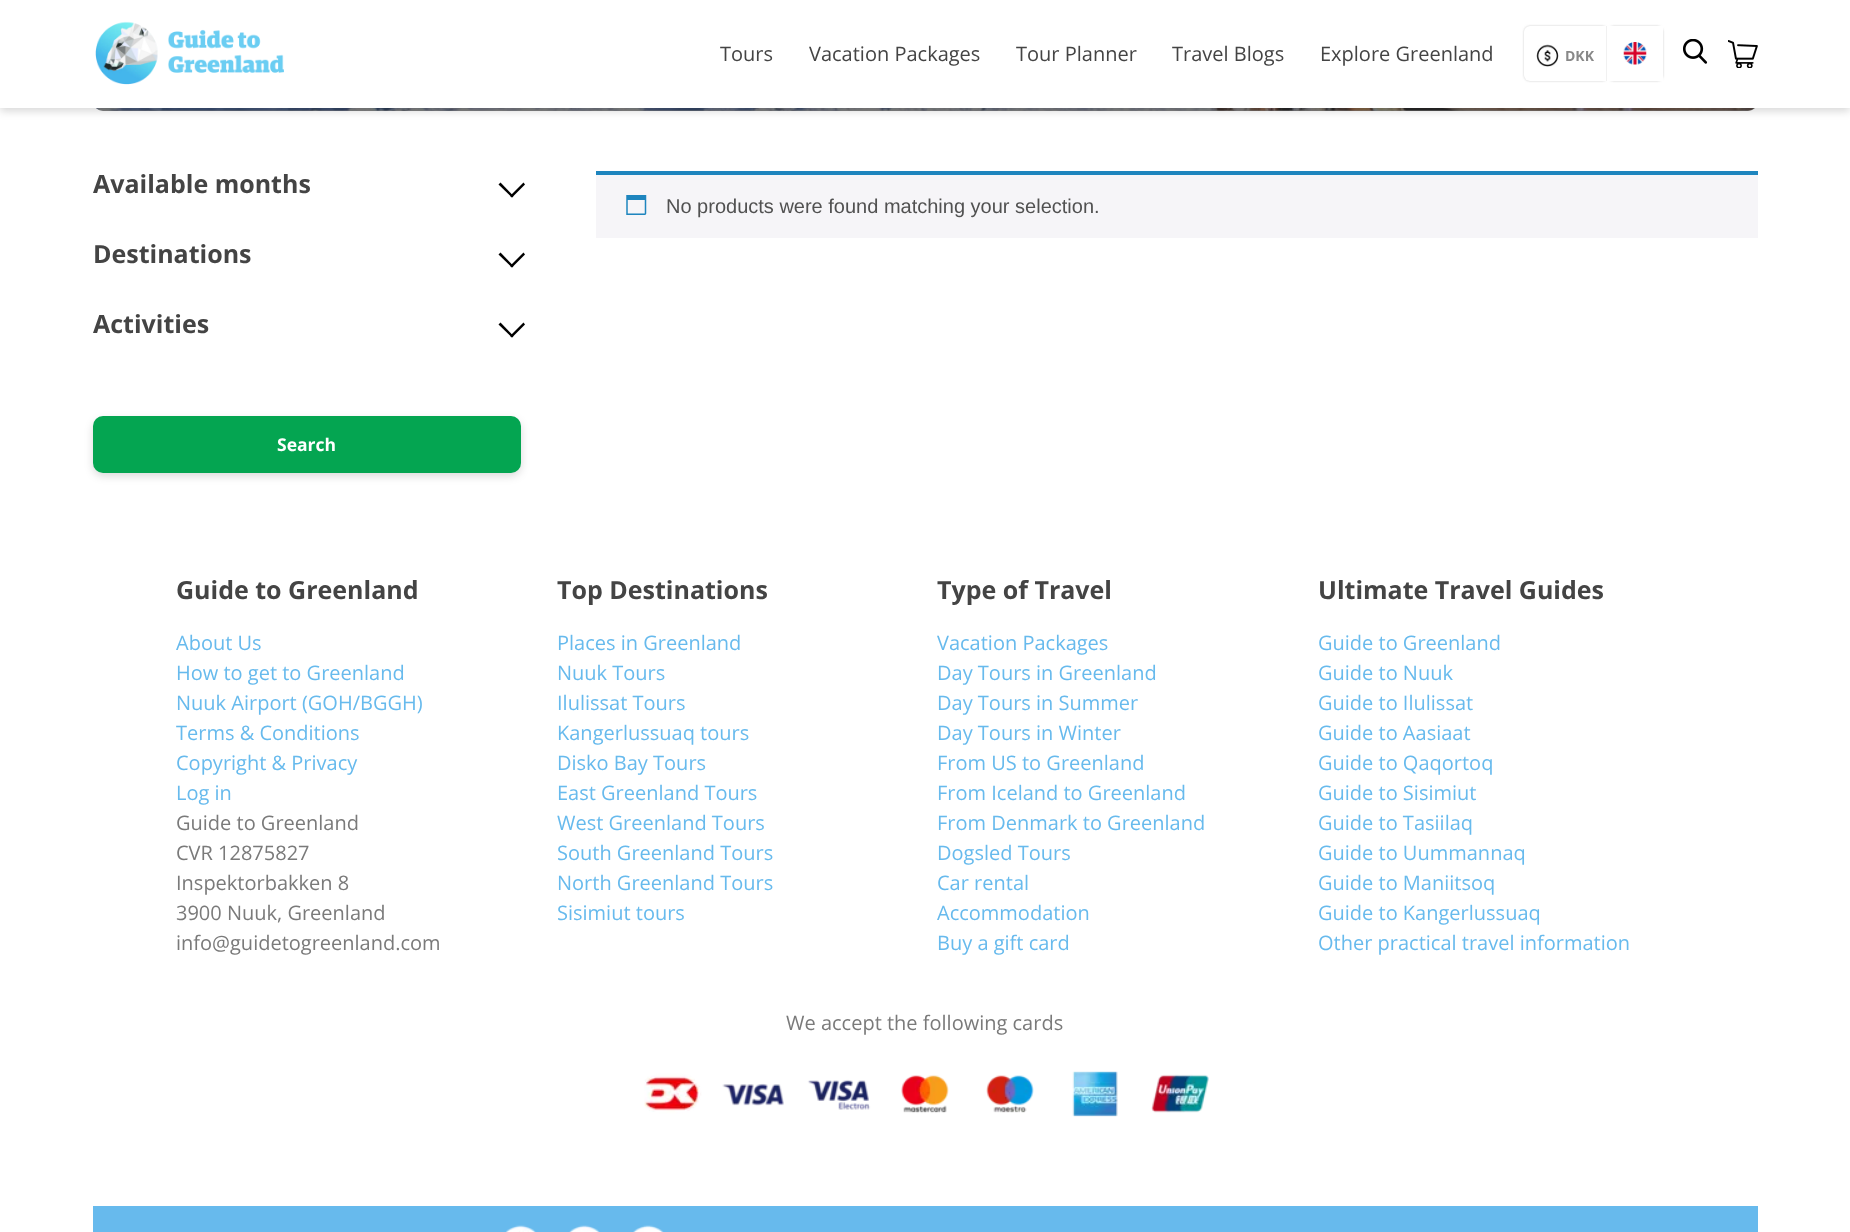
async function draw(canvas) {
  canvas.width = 1850;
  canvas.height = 1232;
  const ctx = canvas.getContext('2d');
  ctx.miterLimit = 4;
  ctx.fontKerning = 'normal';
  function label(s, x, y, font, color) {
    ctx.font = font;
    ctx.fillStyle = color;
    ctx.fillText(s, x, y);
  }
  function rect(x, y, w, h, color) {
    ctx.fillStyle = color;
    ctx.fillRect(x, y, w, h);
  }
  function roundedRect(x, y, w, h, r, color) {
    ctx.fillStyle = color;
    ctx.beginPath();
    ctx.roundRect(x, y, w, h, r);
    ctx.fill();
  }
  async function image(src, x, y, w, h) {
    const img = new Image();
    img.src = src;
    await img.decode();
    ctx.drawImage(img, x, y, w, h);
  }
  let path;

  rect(0, 0, 1850, 1232, '#fff');
  await image('assets/img6.png', 96, 108, 1658, 3);
  roundedRect(93, -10, 1665, 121, 10, '#3c3c3c66');
  roundedRect(93, -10, 1665, 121, 10, '#3c3c3c66');
  ctx.fillStyle = '#00000029';
  ctx.filter = 'blur(4px)';
  ctx.beginPath();
  ctx.rect(0, 4, 1850, 107);
  ctx.fill();
  ctx.filter = 'none';
  rect(0, 0, 1850, 108, '#fff');
  await image('assets/img1.png', 95, 21, 189, 64);
  label('Tours', 720, 61, '20px Open Sans', '#444');
  label('Vacation Packages', 809, 61, '20px Open Sans', '#444');
  label('Tour Planner', 1016, 61, '20px Open Sans', '#444');
  label('Travel Blogs', 1172, 61, '20px Open Sans', '#444');
  label('Explore Greenland', 1320, 61, '20px Open Sans', '#444');
  ctx.fillStyle = '#ccc';
  ctx.filter = 'blur(1px)';
  ctx.beginPath();
  ctx.roundRect(1524, 26, 84, 55, 6);
  ctx.fill();
  ctx.filter = 'none';
  ctx.filter = 'blur(1px)';
  ctx.beginPath();
  ctx.roundRect(1608, 26, 55, 55, 6);
  ctx.fill();
  ctx.filter = 'none';
  ctx.fillStyle = '#fff';
  ctx.beginPath();
  ctx.roundRect(1524, 26, 84, 55, [6, 0, 0, 6]);
  ctx.fill();
  rect(1606, 26, 1, 55, '#f1f1f1');
  await image('assets/img2.png', 1536, 44, 23, 23);
  label('DKK', 1565, 61, 'bold 14px Open Sans', '#888');
  rect(1608, 26, 55, 55, '#fff');
  await image('assets/img3.png', 1623, 42, 24, 23);
  await image('assets/img4.png', 1683, 39, 25, 25);
  await image('assets/img5.png', 1728, 40, 30, 28);
  label('Available months', 93, 193, 'bold 25px Open Sans', '#444');
  ctx.fillStyle = '#000';
  path = new Path2D('M523.5 182.5L525 184.5L512 197.5L510 196Z');
  ctx.fill(path);
  path = new Path2D('M500.5 182.5L513.5 196L512 197.5L498.5 184.5Z');
  ctx.fill(path);
  label('Destinations', 93, 263, 'bold 25px Open Sans', '#444');
  ctx.fillStyle = '#000';
  path = new Path2D('M523.5 252.5L525 254.5L512 267.5L510 266Z');
  ctx.fill(path);
  path = new Path2D('M500.5 252.5L513.5 266L512 267.5L498.5 254.5Z');
  ctx.fill(path);
  label('Activities', 93, 333, 'bold 25px Open Sans', '#444');
  ctx.fillStyle = '#000';
  path = new Path2D('M523.5 322.5L525 324.5L512 337.5L510 336Z');
  ctx.fill(path);
  path = new Path2D('M500.5 322.5L513.5 336L512 337.5L498.5 324.5Z');
  ctx.fill(path);
  ctx.fillStyle = '#00000026';
  ctx.filter = 'blur(4px)';
  ctx.beginPath();
  ctx.roundRect(93, 420, 428, 56, 10);
  ctx.fill();
  ctx.filter = 'none';
  roundedRect(93, 416, 428, 57, 10, '#04a551');
  label('Search', 277, 451, 'bold 17.5px Open Sans', '#fff');
  rect(596, 175, 1162, 63, '#f6f5f8');
  rect(596, 171, 1162, 4, '#1e85be');
  await image('assets/img7.png', 626, 195, 21, 20);
  label('No products were found matching your selection.', 666, 213, '20px Liberation Sans', '#515151');
  label('Guide to Greenland', 176, 599, 'bold 25px Open Sans', '#444');
  label('About Us', 176, 650, '20px Open Sans', '#67baed');
  label('How to get to Greenland', 176, 680, '20px Open Sans', '#67baed');
  label('Nuuk Airport (GOH/BGGH)', 176, 710, '20px Open Sans', '#67baed');
  label('Terms & Conditions', 176, 740, '20px Open Sans', '#67baed');
  label('Copyright & Privacy', 176, 770, '20px Open Sans', '#67baed');
  label('Log in', 176, 800, '20px Open Sans', '#67baed');
  label('Guide to Greenland', 176, 830, '20px Open Sans', '#7a7a7a');
  label('CVR 12875827', 176, 860, '20px Open Sans', '#7a7a7a');
  label('Inspektorbakken 8', 176, 890, '20px Open Sans', '#7a7a7a');
  label('3900 Nuuk, Greenland', 176, 920, '20px Open Sans', '#7a7a7a');
  label('info@guidetogreenland.com', 176, 950, '20px Open Sans', '#7a7a7a');
  label('Top Destinations', 557, 599, 'bold 25px Open Sans', '#444');
  label('Places in Greenland', 557, 650, '20px Open Sans', '#67baed');
  label('Nuuk Tours', 557, 680, '20px Open Sans', '#67baed');
  label('Ilulissat Tours', 557, 710, '20px Open Sans', '#67baed');
  label('Kangerlussuaq tours', 557, 740, '20px Open Sans', '#67baed');
  label('Disko Bay Tours', 557, 770, '20px Open Sans', '#67baed');
  label('East Greenland Tours', 557, 800, '20px Open Sans', '#67baed');
  label('West Greenland Tours', 557, 830, '20px Open Sans', '#67baed');
  label('South Greenland Tours', 557, 860, '20px Open Sans', '#67baed');
  label('North Greenland Tours', 557, 890, '20px Open Sans', '#67baed');
  label('Sisimiut tours', 557, 920, '20px Open Sans', '#67baed');
  label('Type of Travel', 937, 599, 'bold 25px Open Sans', '#444');
  label('Vacation Packages', 937, 650, '20px Open Sans', '#67baed');
  label('Day Tours in Greenland', 937, 680, '20px Open Sans', '#67baed');
  label('Day Tours in Summer', 937, 710, '20px Open Sans', '#67baed');
  label('Day Tours in Winter', 937, 740, '20px Open Sans', '#67baed');
  label('From US to Greenland', 937, 770, '20px Open Sans', '#67baed');
  label('From Iceland to Greenland', 937, 800, '20px Open Sans', '#67baed');
  label('From Denmark to Greenland', 937, 830, '20px Open Sans', '#67baed');
  label('Dogsled Tours', 937, 860, '20px Open Sans', '#67baed');
  label('Car rental', 937, 890, '20px Open Sans', '#67baed');
  label('Accommodation', 937, 920, '20px Open Sans', '#67baed');
  label('Buy a gift card', 937, 950, '20px Open Sans', '#67baed');
  label('Ultimate Travel Guides', 1318, 599, 'bold 25px Open Sans', '#444');
  label('Guide to Greenland', 1318, 650, '20px Open Sans', '#67baed');
  label('Guide to Nuuk', 1318, 680, '20px Open Sans', '#67baed');
  label('Guide to Ilulissat', 1318, 710, '20px Open Sans', '#67baed');
  label('Guide to Aasiaat', 1318, 740, '20px Open Sans', '#67baed');
  label('Guide to Qaqortoq', 1318, 770, '20px Open Sans', '#67baed');
  label('Guide to Sisimiut', 1318, 800, '20px Open Sans', '#67baed');
  label('Guide to Tasiilaq', 1318, 830, '20px Open Sans', '#67baed');
  label('Guide to Uummannaq', 1318, 860, '20px Open Sans', '#67baed');
  label('Guide to Maniitsoq', 1318, 890, '20px Open Sans', '#67baed');
  label('Guide to Kangerlussuaq', 1318, 920, '20px Open Sans', '#67baed');
  label('Other practical travel information', 1318, 950, '20px Open Sans', '#67baed');
  label('We accept the following cards', 786, 1030, '20px Open Sans', '#7a7a7a');
  await image('assets/img8.png', 644, 1071, 565, 46);
  rect(93, 1206, 1665, 26, '#67baed');
  await image('assets/img9.png', 505, 1225, 31, 7);
  await image('assets/img10.png', 569, 1225, 31, 7);
  await image('assets/img11.png', 633, 1225, 31, 7);
}

draw(document.querySelector('canvas'));
